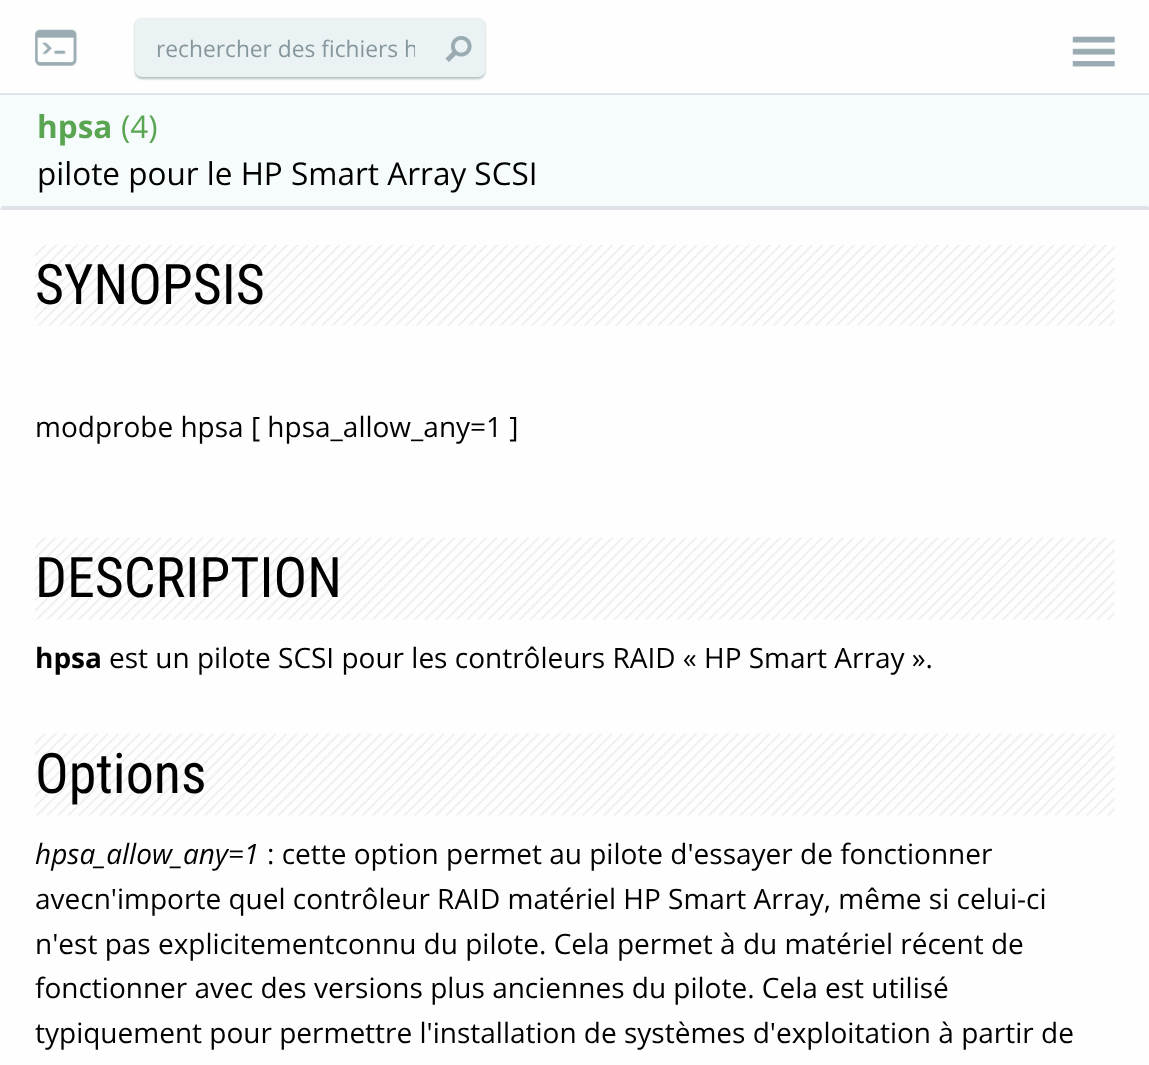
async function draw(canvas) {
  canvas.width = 1149;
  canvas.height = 1065;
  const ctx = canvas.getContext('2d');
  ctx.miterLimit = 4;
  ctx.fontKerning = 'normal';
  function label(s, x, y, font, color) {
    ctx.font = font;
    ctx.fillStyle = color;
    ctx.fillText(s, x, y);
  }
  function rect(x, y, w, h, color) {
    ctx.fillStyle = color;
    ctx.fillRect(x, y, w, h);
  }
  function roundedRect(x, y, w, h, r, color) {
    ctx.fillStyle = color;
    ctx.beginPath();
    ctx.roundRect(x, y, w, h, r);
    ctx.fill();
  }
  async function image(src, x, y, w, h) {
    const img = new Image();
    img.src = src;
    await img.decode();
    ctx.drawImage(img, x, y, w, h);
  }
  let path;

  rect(0, 0, 1149, 1065, '#fefefe');
  rect(0, 93, 1149, 2, '#dce5e7');
  await image('assets/img1.png', 35, 29, 43, 37);
  ctx.fillStyle = '#062f374d';
  ctx.filter = 'blur(1px)';
  ctx.beginPath();
  ctx.roundRect(135, 19, 350, 60, 7);
  ctx.fill();
  ctx.filter = 'none';
  roundedRect(135, 18, 350, 59, 7, '#eaf2f4');
  ctx.save();
  ctx.beginPath();
  ctx.rect(156, 33, 259, 32);
  ctx.clip();
  label('rechercher des fichiers h', 156, 57, '22.75px Open Sans', '#86969d');
  ctx.restore();
  await image('assets/img2.png', 445, 36, 27, 26);
  await image('assets/img3.png', 1072, 36, 43, 31);
  rect(0, 95, 1149, 115, '#f6fbfc');
  ctx.fillStyle = '#dfe3e9';
  path = new Path2D('M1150 210H0L2 206H1148Z');
  ctx.fill(path);
  label('hpsa', 37, 138, 'bold 31.5px Open Sans', '#59a552');
  label('(4)', 121, 138, '31.5px Open Sans', '#59a552');
  label('pilote pour le HP Smart Array SCSI', 37, 185, '31.5px Open Sans', '#000');
  await image('assets/img4.png', 35, 245, 1080, 81);
  label('SYNOPSIS', 35, 304, '56px Roboto Condensed', '#000');
  label('modprobe hpsa [ hpsa_allow_any=1 ]', 35, 437, '28px Open Sans', '#000');
  await image('assets/img5.png', 35, 537, 1080, 83);
  label('DESCRIPTION', 35, 597, '56px Roboto Condensed', '#000');
  label('hpsa', 35, 668, 'bold 28px Open Sans', '#000');
  label('est un pilote SCSI pour les contrôleurs RAID « HP Smart Array ».', 109, 668, '28px Open Sans', '#000');
  await image('assets/img5.png', 35, 733, 1080, 83);
  label('Options', 35, 793, '56px Roboto Condensed', '#000');
  label('hpsa_allow_any=1', 35, 864, 'italic 28px Open Sans', '#000');
  label(': cette option permet au pilote d\'essayer de fonctionner', 267, 864, '28px Open Sans', '#000');
  label('avecn\'importe quel contrôleur RAID matériel HP Smart Array, même si celui-ci', 35, 909, '28px Open Sans', '#000');
  label('n\'est pas explicitementconnu du pilote. Cela permet à du matériel récent de', 35, 954, '28px Open Sans', '#000');
  label('fonctionner avec des versions plus anciennes du pilote. Cela est utilisé', 35, 998, '28px Open Sans', '#000');
  label('typiquement pour permettre l\'installation de systèmes d\'exploitation à partir de', 35, 1043, '28px Open Sans', '#000');
}

draw(document.querySelector('canvas'));
